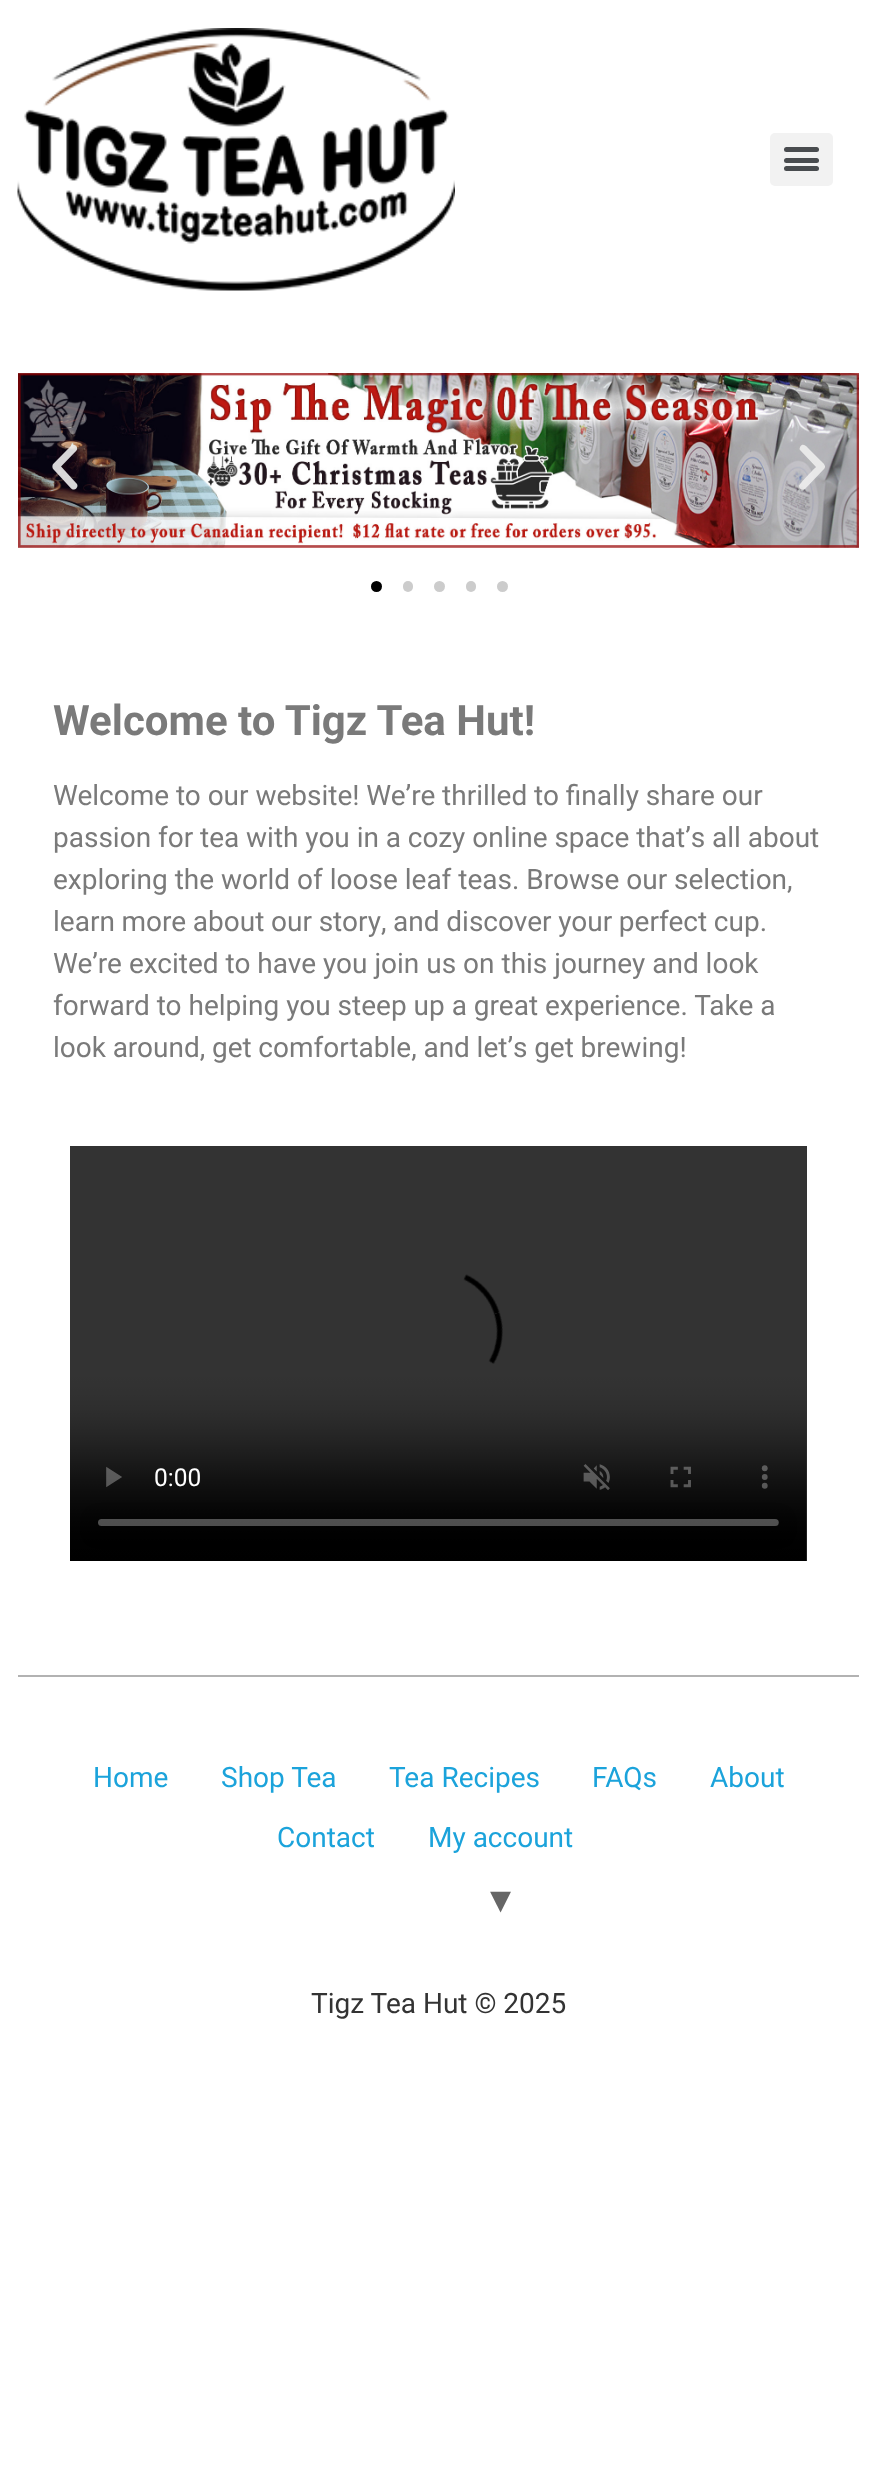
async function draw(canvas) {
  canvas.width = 876;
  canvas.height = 2475;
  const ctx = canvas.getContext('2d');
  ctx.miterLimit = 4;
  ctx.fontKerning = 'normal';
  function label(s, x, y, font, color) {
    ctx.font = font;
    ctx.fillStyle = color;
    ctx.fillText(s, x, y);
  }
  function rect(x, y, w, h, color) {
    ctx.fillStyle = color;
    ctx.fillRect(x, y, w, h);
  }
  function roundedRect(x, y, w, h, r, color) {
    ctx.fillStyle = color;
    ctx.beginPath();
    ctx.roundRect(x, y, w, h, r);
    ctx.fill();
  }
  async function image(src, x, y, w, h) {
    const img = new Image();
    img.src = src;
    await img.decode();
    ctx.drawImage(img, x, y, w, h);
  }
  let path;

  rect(0, 0, 876, 2475, '#fff');
  await image('assets/img1.png', 17, 28, 438, 263);
  roundedRect(770, 133, 63, 53, 5, '#f2f2f2');
  roundedRect(784, 158, 35, 5, 2.5, '#494c4f');
  roundedRect(784, 147, 35, 5, 2.5, '#494c4f');
  roundedRect(784, 166, 35, 5, 2.5, '#494c4f');
  await image('assets/img2.png', 18, 373, 841, 175);
  await image('assets/img3.png', 52, 445, 26, 45);
  ctx.fillStyle = '#ededede6';
  path = new Path2D('M824 469C827 466 823 463 821 461L809 449C807 447 803 442 800 447C800 448 799 449 800 450L816 467C813 470 800 483 799 486C799 489 803 491 805 489Z');
  ctx.fill(path);
  ctx.fillStyle = '#000';
  ctx.beginPath();
  ctx.arc(376.5, 586.5, 5.5, 0, 2 * Math.PI);
  ctx.fill();
  roundedRect(403, 581, 10, 11, 5, '#ccc');
  ctx.beginPath();
  ctx.arc(439.5, 586.5, 5.5, 0, 2 * Math.PI);
  ctx.fill();
  roundedRect(466, 581, 10, 11, 5, '#ccc');
  ctx.beginPath();
  ctx.arc(502.5, 586.5, 5.5, 0, 2 * Math.PI);
  ctx.fill();
  label('Welcome to Tigz Tea Hut!', 53, 735, 'bold 42px Roboto', '#7a7a7a');
  ctx.wordSpacing = '-0.1px';
  label('Welcome to our website! We’re thrilled to finally share our', 53, 805, '28px Roboto', '#7a7a7a');
  label('passion for tea with you in a cozy online space that’s all about', 53, 847, '28px Roboto', '#7a7a7a');
  ctx.wordSpacing = '0px';
  label('exploring the world of loose leaf teas. Browse our selection,', 53, 889, '28px Roboto', '#7a7a7a');
  ctx.wordSpacing = '-0.25px';
  label('learn more about our story, and discover your perfect cup.', 53, 931, '28px Roboto', '#7a7a7a');
  ctx.wordSpacing = '0px';
  label('We’re excited to have you join us on this journey and look', 53, 973, '28px Roboto', '#7a7a7a');
  label('forward to helping you steep up a great experience. Take a', 53, 1015, '28px Roboto', '#7a7a7a');
  ctx.wordSpacing = '-0.25px';
  label('look around, get comfortable, and let’s get brewing!', 53, 1057, '28px Roboto', '#7a7a7a');
  await image('assets/img4.png', 70, 1146, 737, 415);
  rect(18, 1675, 841, 2, '#b2b2b2');
  ctx.wordSpacing = '0px';
  label('Home', 93, 1787, '28px Roboto', '#1ba3db');
  label('Shop Tea', 221, 1787, '28px Roboto', '#1ba3db');
  label('Tea Recipes', 389, 1787, '28px Roboto', '#1ba3db');
  label('FAQs', 592, 1787, '28px Roboto', '#1ba3db');
  label('About', 710, 1787, '28px Roboto', '#1ba3db');
  label('Contact', 277, 1847, '28px Roboto', '#1ba3db');
  label('My account', 428, 1847, '28px Roboto', '#1ba3db');
  label('▾', 490, 1913, '42px DejaVu Sans', '#666');
  label('Tigz Tea Hut © 2025', 311, 2013, '28px Roboto', '#333');
}

draw(document.querySelector('canvas'));
